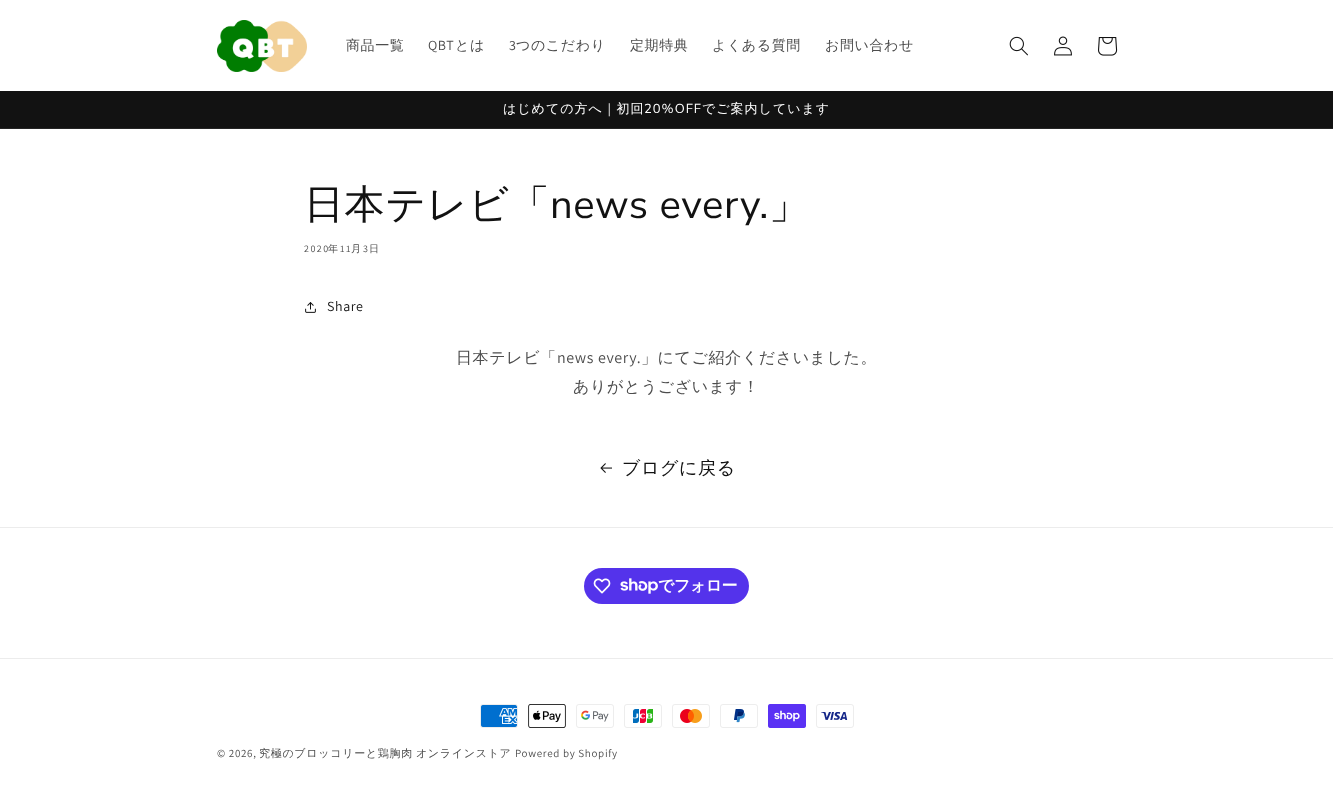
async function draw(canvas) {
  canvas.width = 1333;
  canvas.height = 799;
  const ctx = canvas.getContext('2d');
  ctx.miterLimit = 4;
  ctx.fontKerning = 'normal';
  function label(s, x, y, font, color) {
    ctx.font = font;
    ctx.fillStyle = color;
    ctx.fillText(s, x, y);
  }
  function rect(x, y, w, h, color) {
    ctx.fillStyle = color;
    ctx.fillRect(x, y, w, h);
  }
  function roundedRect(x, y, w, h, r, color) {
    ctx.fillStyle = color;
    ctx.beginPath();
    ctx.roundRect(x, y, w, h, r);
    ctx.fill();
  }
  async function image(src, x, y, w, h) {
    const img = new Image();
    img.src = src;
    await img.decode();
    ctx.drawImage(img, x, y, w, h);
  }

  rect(0, 0, 1333, 799, '#fff');
  await image('assets/img1.png', 217, 20, 90, 52);
  ctx.letterSpacing = '0.6px';
  label('商品一覧', 346, 50, '500 14px WenQuanYi Zen Hei', '#4d4d4d');
  label('QBT', 428, 50, '14px Assistant', '#4d4d4d');
  label('とは', 455, 50, '500 14px WenQuanYi Zen Hei', '#4d4d4d');
  label('3', 509, 50, '14px Assistant', '#4d4d4d');
  label('つのこだわり', 516, 50, '500 14px WenQuanYi Zen Hei', '#4d4d4d');
  label('定期特典', 630, 50, '500 14px WenQuanYi Zen Hei', '#4d4d4d');
  label('よくある質問', 712, 50, '500 14px WenQuanYi Zen Hei', '#4d4d4d');
  label('お問い合わせ', 825, 50, '500 14px WenQuanYi Zen Hei', '#4d4d4d');
  await image('assets/img2.png', 1009, 36, 19, 20);
  await image('assets/img3.png', 1054, 36, 18, 20);
  await image('assets/img4.png', 1098, 37, 20, 19);
  rect(0, 91, 1333, 37, '#121212');
  rect(0, 128, 1333, 1, '#252525');
  ctx.letterSpacing = '1px';
  label('はじめての方へ｜初回', 503, 113, '500 13px WenQuanYi Zen Hei', '#fff');
  label('20%OFF', 644, 113, '13px Nunito Sans', '#fff');
  label('でご案内しています', 702, 113, '500 13px WenQuanYi Zen Hei', '#fff');
  ctx.letterSpacing = '0.6px';
  label('日本テレビ「', 304, 218, '500 40px WenQuanYi Zen Hei', '#121212');
  label('news every.', 550, 218, '40px Nunito Sans', '#121212');
  label('」', 769, 218, '500 40px WenQuanYi Zen Hei', '#121212');
  ctx.letterSpacing = '1.5px';
  label('2020', 304, 252, '10px Assistant', '#4d4d4d');
  label('年', 328, 252, '500 10px WenQuanYi Zen Hei', '#4d4d4d');
  label('11', 340, 252, '10px Assistant', '#4d4d4d');
  label('月', 351, 252, '500 10px WenQuanYi Zen Hei', '#4d4d4d');
  label('3', 363, 252, '10px Assistant', '#4d4d4d');
  label('日', 369, 252, '500 10px WenQuanYi Zen Hei', '#4d4d4d');
  await image('assets/img5.png', 305, 302, 11, 11);
  ctx.letterSpacing = '0.6px';
  label('Share', 327, 311, '14px Assistant', '#121212');
  label('日本テレビ「', 456, 363, '500 16px WenQuanYi Zen Hei', '#4d4d4d');
  label('news every.', 557, 363, '16px Assistant', '#4d4d4d');
  label('」にてご紹介くださいました。', 641, 363, '500 16px WenQuanYi Zen Hei', '#4d4d4d');
  label('ありがとうございます！', 573, 392, '500 16px WenQuanYi Zen Hei', '#4d4d4d');
  await image('assets/img6.png', 600, 463, 12, 10);
  label('ブログに戻る', 622, 474, '500 18px WenQuanYi Zen Hei', '#121212');
  rect(0, 527, 1333, 1, '#ececec');
  roundedRect(584, 568, 165, 36, 18, '#5433eb');
  await image('assets/img7.png', 593, 578, 18, 16);
  await image('assets/img8.png', 620, 578, 38, 16);
  ctx.letterSpacing = '-0.5px';
  label('でフォロー', 658, 591, 'bold 16px WenQuanYi Zen Hei', '#fff');
  rect(0, 658, 1333, 1, '#ececec');
  await image('assets/img9.png', 480, 704, 38, 24);
  await image('assets/img10.png', 528, 704, 38, 24);
  await image('assets/img11.png', 576, 704, 38, 24);
  await image('assets/img12.png', 624, 704, 38, 24);
  await image('assets/img13.png', 672, 704, 38, 24);
  await image('assets/img14.png', 720, 704, 38, 24);
  await image('assets/img15.png', 768, 704, 38, 24);
  await image('assets/img16.png', 816, 704, 38, 24);
  ctx.letterSpacing = '0.7px';
  label('© 2026,', 217, 757, '11px Assistant', '#4d4d4d');
  ctx.wordSpacing = '-1px';
  label('究極のブロッコリーと鶏胸肉 オンラインストア', 259, 757, '500 11px WenQuanYi Zen Hei', '#4d4d4d');
  ctx.wordSpacing = '0px';
  label('Powered by Shopify', 515, 757, '11px Assistant', '#4d4d4d');
}

draw(document.querySelector('canvas'));
